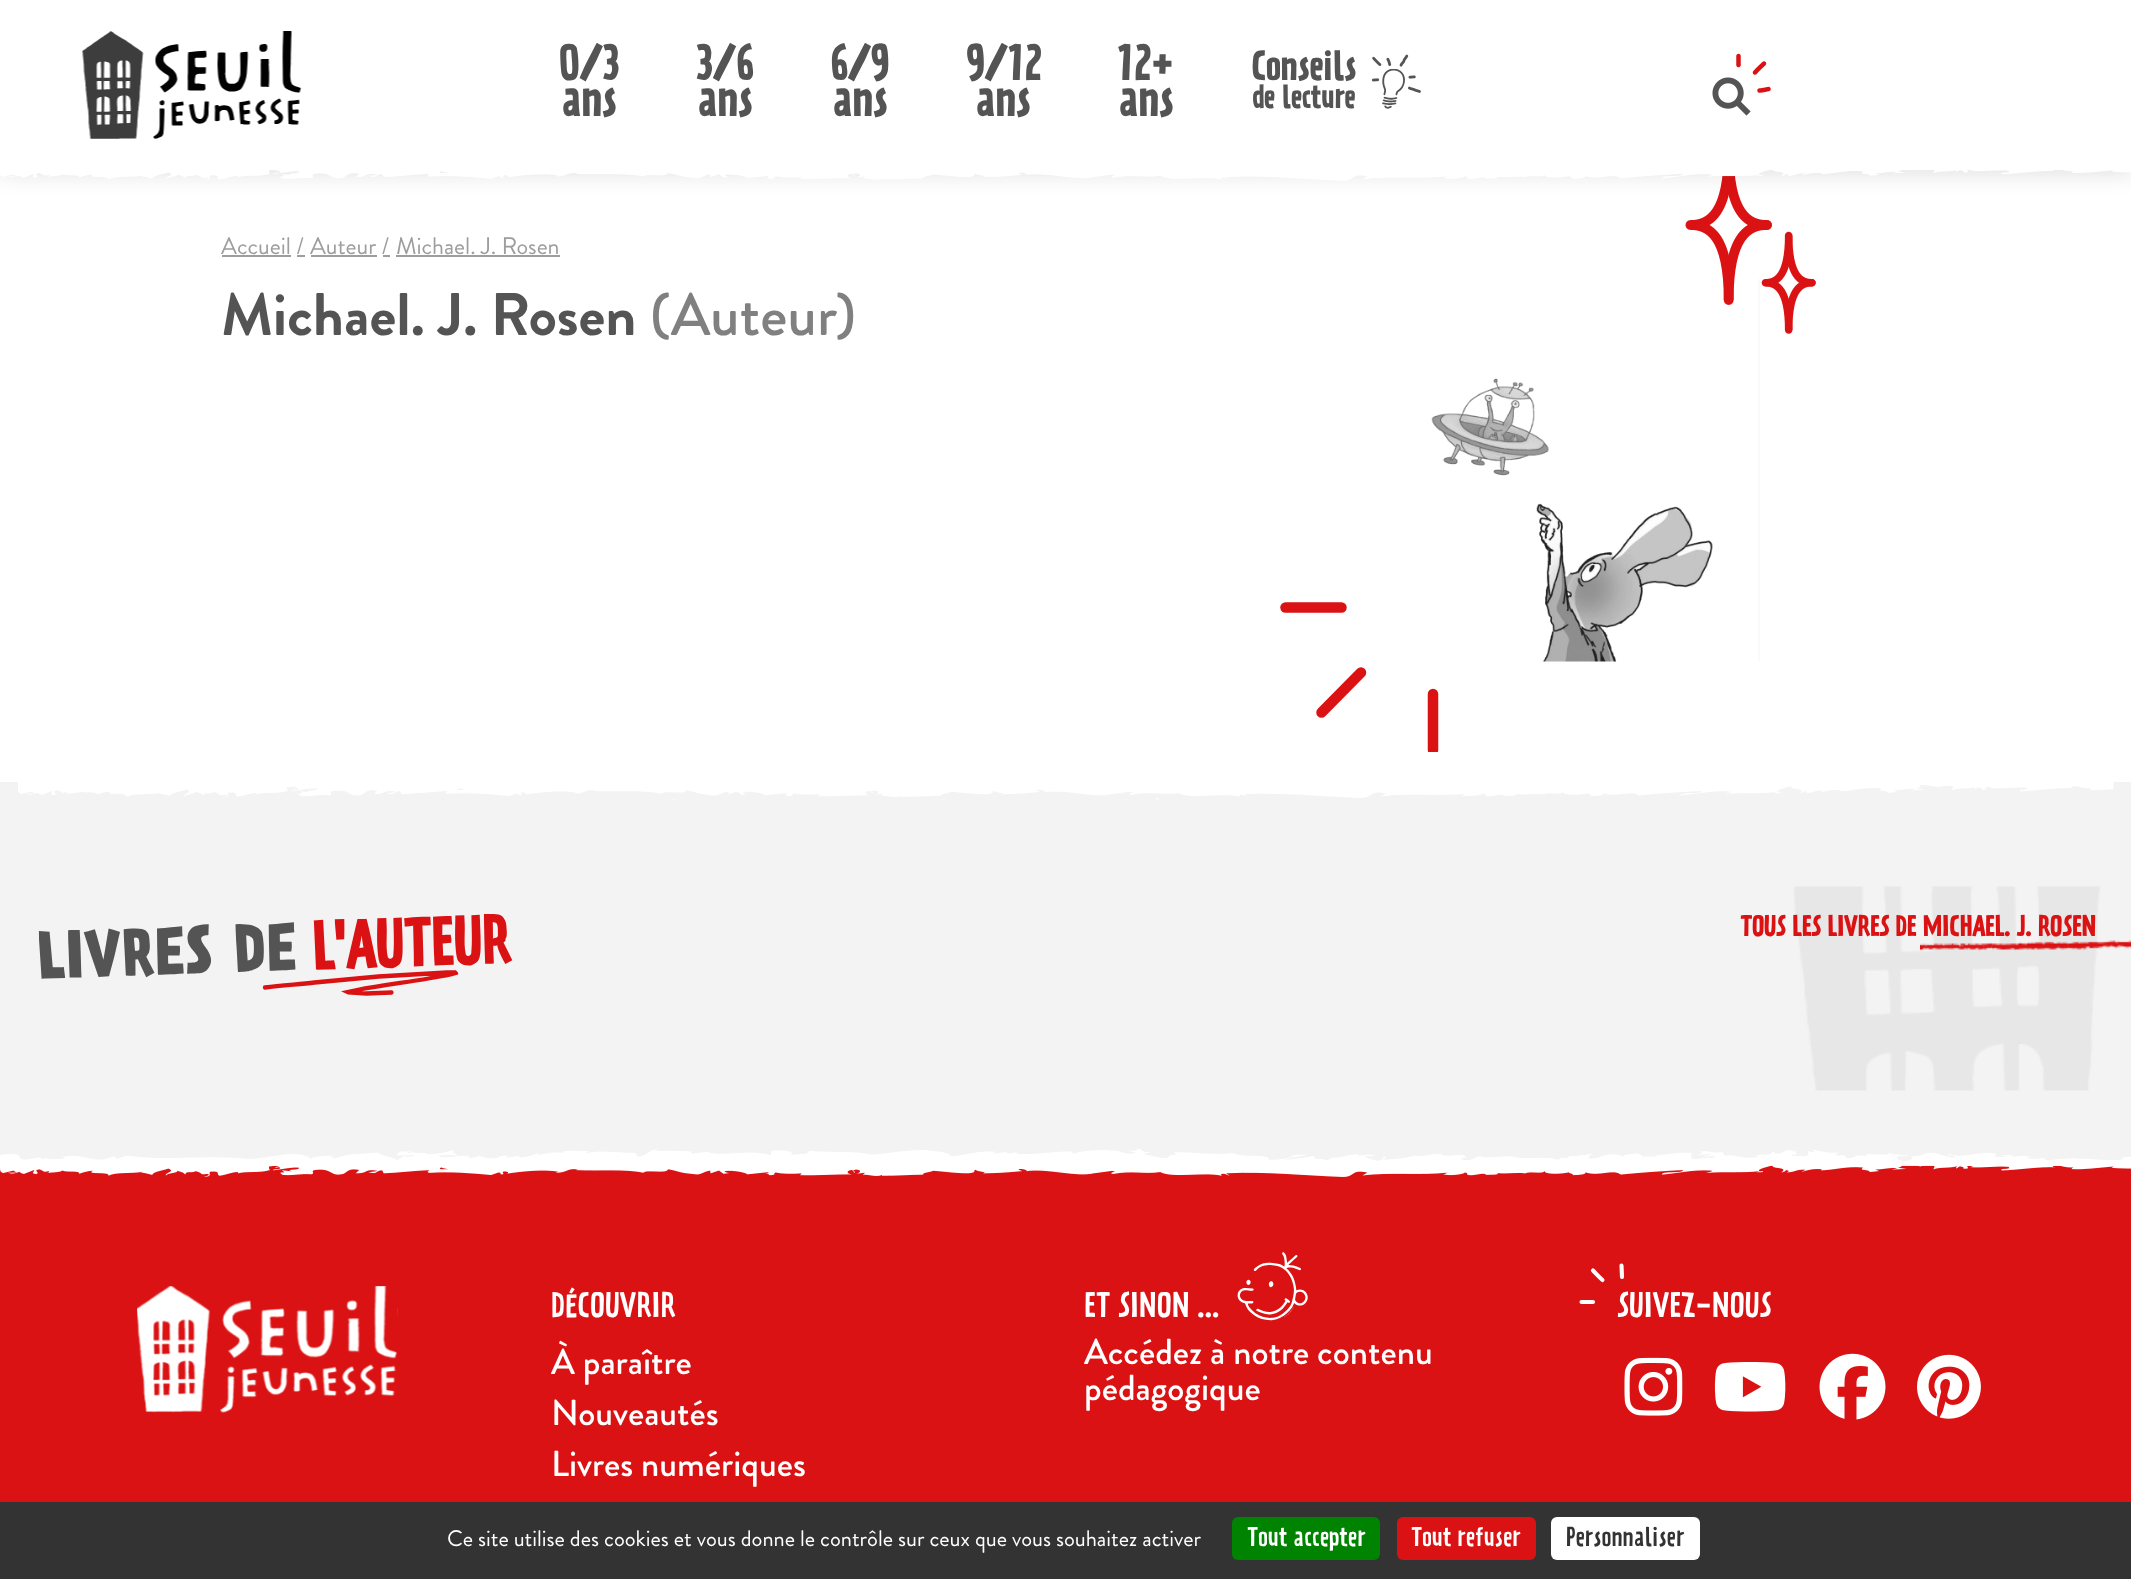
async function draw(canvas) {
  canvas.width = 2131;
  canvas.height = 1579;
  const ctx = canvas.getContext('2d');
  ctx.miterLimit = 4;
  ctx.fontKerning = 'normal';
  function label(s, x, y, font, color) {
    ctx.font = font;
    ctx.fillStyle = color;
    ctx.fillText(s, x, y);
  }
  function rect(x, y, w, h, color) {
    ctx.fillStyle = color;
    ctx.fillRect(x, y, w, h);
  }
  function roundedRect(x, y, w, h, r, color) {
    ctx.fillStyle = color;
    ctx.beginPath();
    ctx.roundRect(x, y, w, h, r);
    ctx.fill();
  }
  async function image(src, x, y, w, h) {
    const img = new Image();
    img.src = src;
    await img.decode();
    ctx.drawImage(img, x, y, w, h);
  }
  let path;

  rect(0, 0, 2131, 1579, '#fff');
  await image('assets/img6.png', 1431, 279, 329, 383);
  await image('assets/img5.png', 1685, 176, 131, 158);
  ctx.fillStyle = '#0000001a';
  ctx.filter = 'blur(10px)';
  ctx.beginPath();
  ctx.rect(0, 6, 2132, 170);
  ctx.fill();
  ctx.filter = 'none';
  rect(0, 0, 2131, 170, '#fff');
  await image('assets/img1.png', 82, 31, 220, 108);
  label('0/3', 558, 80, 'bold 44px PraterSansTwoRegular', '#545454');
  label('ans', 561, 116, 'bold 44px PraterSansTwoRegular', '#545454');
  label('3/6', 696, 80, 'bold 44px PraterSansTwoRegular', '#545454');
  label('ans', 697, 116, 'bold 44px PraterSansTwoRegular', '#545454');
  label('6/9', 830, 80, 'bold 44px PraterSansTwoRegular', '#545454');
  label('ans', 832, 116, 'bold 44px PraterSansTwoRegular', '#545454');
  label('9/12', 966, 80, 'bold 44px PraterSansTwoRegular', '#545454');
  label('ans', 975, 116, 'bold 44px PraterSansTwoRegular', '#545454');
  label('12+', 1117, 80, 'bold 44px PraterSansTwoRegular', '#545454');
  label('ans', 1118, 116, 'bold 44px PraterSansTwoRegular', '#545454');
  label('Conseils', 1251, 80, 'bold 36px PraterSansTwoRegular', '#545454');
  label('de lecture', 1252, 108, 'bold 28.5px PraterSansTwoRegular', '#545454');
  await image('assets/img2.png', 1371, 54, 50, 55);
  await image('assets/img3.png', 1712, 53, 59, 63);
  await image('assets/img4.png', 0, 170, 2131, 11);
  label('Accueil /', 221, 254, '24px Brandon Grotesque', '#9d9d9d');
  rect(222, 255, 69, 2, '#9d9d9d');
  label('Auteur /', 310, 254, '24px Brandon Grotesque', '#9d9d9d');
  rect(311, 255, 66, 2, '#9d9d9d');
  label('Michael. J. Rosen', 396, 254, '24px Brandon Grotesque', '#9d9d9d');
  rect(396, 255, 164, 2, '#9d9d9d');
  rect(297, 255, 8, 2, '#9d9d9d');
  rect(383, 255, 7, 2, '#9d9d9d');
  label('Michael. J. Rosen', 221, 335, 'bold 60px Brandon Grotesque', '#545454');
  label('(Auteur)', 650, 335, '500 60px Brandon Grotesque', '#808080');
  ctx.save();
  ctx.beginPath();
  ctx.rect(1280, 602, 159, 150);
  ctx.clip();
  path = new Path2D('M1433 694V750');
  ctx.strokeStyle = '#db1213';
  ctx.lineWidth = 10.5;
  ctx.lineCap = 'round';
  ctx.stroke(path);
  ctx.restore();
  path = new Path2D('M1341.5 607.5H1285.5');
  ctx.strokeStyle = '#db1213';
  ctx.lineWidth = 10.5;
  ctx.lineCap = 'round';
  ctx.stroke(path);
  path = new Path2D('M1361 672.5L1321.5 712.5');
  ctx.stroke(path);
  rect(0, 782, 2131, 384, '#f3f3f3');
  await image('assets/img7.png', 18, 782, 2096, 18);
  await image('assets/img8.png', 1794, 886, 306, 205);
  ctx.font = 'bold 60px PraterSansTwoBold';
  ctx.fillStyle = '#545454';
  ctx.save();
  ctx.translate(37, 979);
  ctx.rotate(-2 * Math.PI / 180);
  ctx.fillText('LIVRES DE', 0, 0);
  ctx.restore();
  ctx.font = 'bold 60px PraterSansTwoRegular';
  ctx.fillStyle = '#db1213';
  ctx.save();
  ctx.translate(312, 970);
  ctx.rotate(-2 * Math.PI / 180);
  ctx.fillText('L\'AUTEUR', 0, 0);
  ctx.restore();
  ctx.save();
  path = new Path2D('M262 976L458 969L459 993L262.5 1000Z');
  ctx.clip(path);
  path = new Path2D('M265 987.5C281.5 985 298 984.5 314.5 982.5L378.5 976.5L447 972.5H455L455.5 973L450.5 974.5C419.5 981 388 984 357 990L347.5 992L348.5 992.5L366.5 993.5L391.5 992.5');
  ctx.lineWidth = 4.3;
  ctx.stroke(path);
  ctx.restore();
  label('TOUS LES LIVRES DE MICHAEL. J. ROSEN', 1740, 936, 'bold 25.5px PraterSansTwoRegular', '#db1213');
  await image('assets/img9.png', 1920, 940, 211, 11);
  rect(0, 1166, 2131, 336, '#db1213');
  await image('assets/img10.png', 0, 1149, 2131, 28);
  await image('assets/img11.png', 137, 1286, 261, 127);
  label('DÉCOUVRIR', 551, 1317, '31.5px PraterSansTwoRegular', '#fff');
  label('À paraître', 551, 1374, '500 36px Brandon Grotesque', '#fff');
  label('Nouveautés', 551, 1425, '500 36px Brandon Grotesque', '#fff');
  label('Livres numériques', 551, 1476, '500 36px Brandon Grotesque', '#fff');
  label('ET SINON ...', 1084, 1317, '31.5px PraterSansTwoRegular', '#fff');
  await image('assets/img12.png', 1237, 1252, 71, 69);
  label('Accédez à notre contenu', 1084, 1364, '500 36px Brandon Grotesque', '#fff');
  label('pédagogique', 1084, 1400, '500 36px Brandon Grotesque', '#fff');
  path = new Path2D('M1621.5 1265.5L1622 1277M1593 1270.5C1596 1273.5 1599 1277 1602.5 1280M1581.5 1302H1593');
  ctx.strokeStyle = '#fff';
  ctx.lineWidth = 4.1;
  ctx.stroke(path);
  label('SUIVEZ-NOUS', 1617, 1317, '31.5px PraterSansTwoRegular', '#fff');
  await image('assets/img13.png', 1624, 1357, 59, 59);
  await image('assets/img14.png', 1714, 1362, 72, 50);
  await image('assets/img15.png', 1819, 1353, 67, 67);
  await image('assets/img16.png', 1917, 1354, 64, 65);
  rect(0, 1502, 2131, 77, '#333');
  label('Ce site utilise des cookies et vous donne le contrôle sur ceux que vous souhaitez activer', 447, 1546, '22.5px Brandon Grotesque', '#fff');
  roundedRect(1232, 1517, 148, 43, 6, '#008300');
  label('Tout accepter', 1247, 1546, '24px PraterSansTwoRegular', '#fff');
  roundedRect(1397, 1517, 139, 43, 6, '#db1213');
  label('Tout refuser', 1411, 1546, '24px PraterSansTwoRegular', '#fff');
  roundedRect(1551, 1517, 149, 43, 6, '#fff');
  label('Personnaliser', 1566, 1546, '24px PraterSansTwoRegular', '#333');
}

draw(document.querySelector('canvas'));
